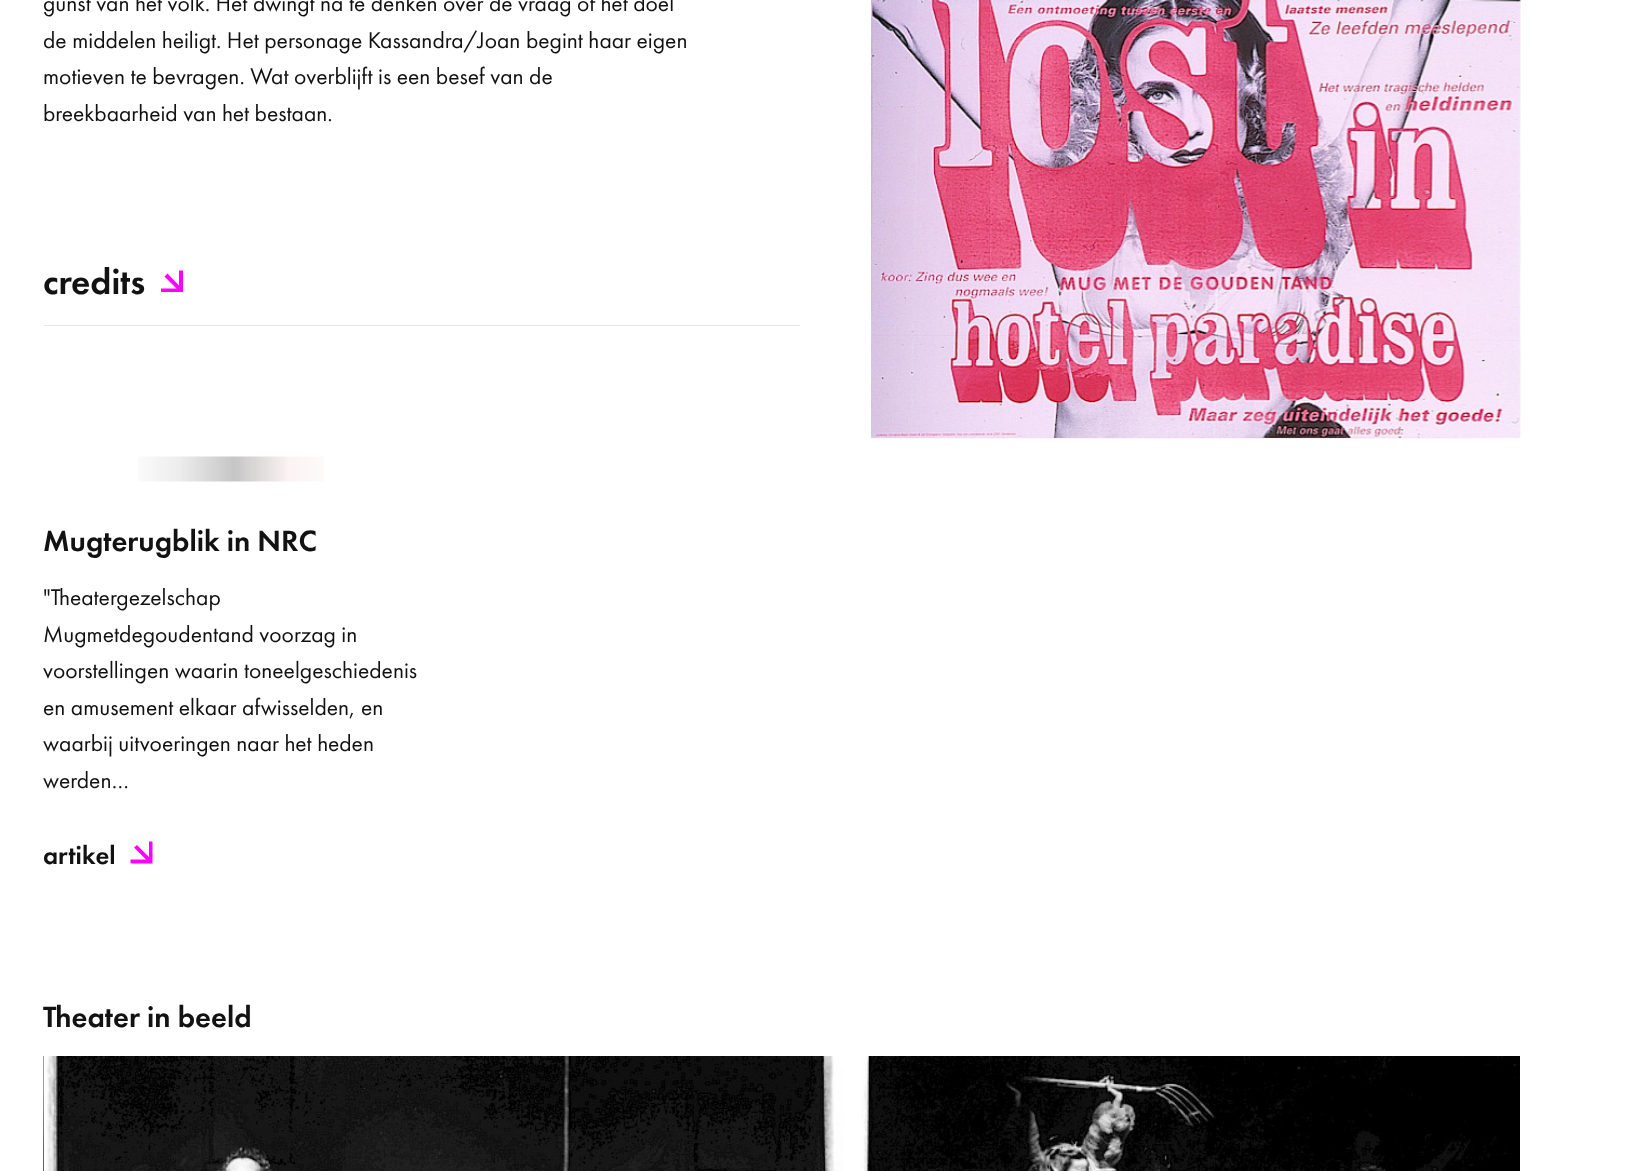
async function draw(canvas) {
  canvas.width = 1650;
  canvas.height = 1171;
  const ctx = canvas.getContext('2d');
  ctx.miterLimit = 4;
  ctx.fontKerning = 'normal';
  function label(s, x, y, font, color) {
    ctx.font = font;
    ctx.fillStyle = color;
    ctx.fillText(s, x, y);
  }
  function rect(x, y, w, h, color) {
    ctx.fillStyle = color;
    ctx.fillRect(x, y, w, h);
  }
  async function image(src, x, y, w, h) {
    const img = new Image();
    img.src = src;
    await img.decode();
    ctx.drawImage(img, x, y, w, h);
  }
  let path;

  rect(0, 0, 1650, 1171, '#fff');
  label('gunst van het volk. Het dwingt na te denken over de vraag of het doel', 43, 11, '23.5px Futura PT', '#121212');
  label('de middelen heiligt. Het personage Kassandra/Joan begint haar eigen', 43, 48, '23.5px Futura PT', '#121212');
  label('motieven te bevragen. Wat overblijft is een besef van de', 43, 84, '23.5px Futura PT', '#121212');
  label('breekbaarheid van het bestaan.', 43, 121, '23.5px Futura PT', '#121212');
  rect(44, 325, 756, 1, '#e7e7e7');
  label('credits', 43, 294, '500 37px Futura PT', '#121212');
  ctx.fillStyle = '#f0f';
  path = new Path2D('M164.5 276.5L167.5 273.5L179 285.5V270.5H183V292H161V288.5H176.5Z');
  ctx.fill(path);
  await image('assets/img1.png', 138, 456, 186, 26);
  label('Mugterugblik in NRC', 43, 551, '500 30.5px Futura PT', '#121212');
  label('"Theatergezelschap', 43, 605, '23.5px Futura PT', '#121212');
  label('Mugmetdegoudentand voorzag in', 43, 642, '23.5px Futura PT', '#121212');
  label('voorstellingen waarin toneelgeschiedenis', 43, 678, '23.5px Futura PT', '#121212');
  label('en amusement elkaar afwisselden, en', 43, 715, '23.5px Futura PT', '#121212');
  label('waarbij uitvoeringen naar het heden', 43, 751, '23.5px Futura PT', '#121212');
  label('werden…', 43, 788, '23.5px Futura PT', '#121212');
  label('artikel', 43, 864, '500 26.5px Futura PT', '#121212');
  ctx.fillStyle = '#f0f';
  path = new Path2D('M137 845L149 857V841.5H152.5V863.5H131.5L130.5 863V859.5H146L134 847.5Z');
  ctx.fill(path);
  await image('assets/img2.png', 871, 0, 650, 439);
  await image('assets/img3.png', 871, 0, 650, 438);
  label('Theater in beeld', 43, 1027, '500 30.5px Futura PT', '#121212');
  await image('assets/img4.png', 43, 1056, 1, 115);
  await image('assets/img5.png', 44, 1056, 800, 115);
  await image('assets/img6.png', 861, 1056, 659, 115);
}

draw(document.querySelector('canvas'));
